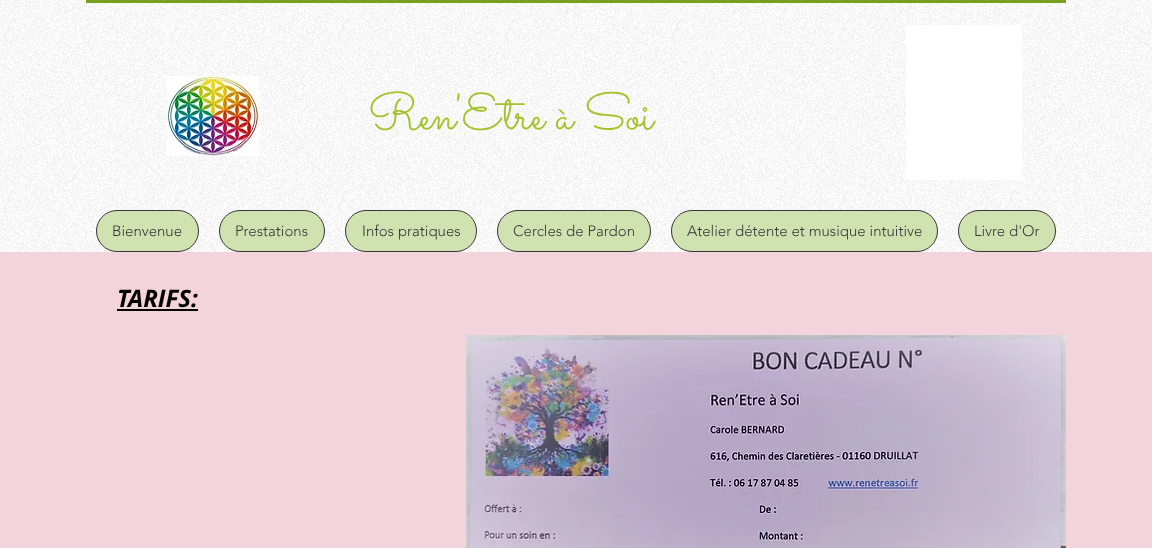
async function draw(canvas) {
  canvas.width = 1152;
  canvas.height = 548;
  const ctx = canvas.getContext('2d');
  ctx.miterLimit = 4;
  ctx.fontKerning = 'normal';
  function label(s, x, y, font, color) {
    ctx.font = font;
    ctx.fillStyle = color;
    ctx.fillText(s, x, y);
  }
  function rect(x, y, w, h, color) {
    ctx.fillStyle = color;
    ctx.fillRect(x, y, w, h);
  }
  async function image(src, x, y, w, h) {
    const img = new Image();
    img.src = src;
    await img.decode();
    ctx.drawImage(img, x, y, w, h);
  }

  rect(0, 0, 1152, 548, '#f4d4dc');
  rect(0, 0, 1152, 252, '#fff');
  await image('assets/img1.png', 0, 0, 1152, 252);
  rect(86, 0, 980, 3, '#7a9e1e');
  await image('assets/img2.png', 167, 76, 92, 80);
  label('Ren\'Etre à Soi', 368, 129, '51px Sacramento', '#a3c22c');
  rect(906, 25, 116, 155, '#fff');
  ctx.fillStyle = '#d0e2b0';
  ctx.beginPath();
  ctx.roundRect(96.5, 210.5, 102, 41, 20.5);
  ctx.fill();
  ctx.strokeStyle = '#383838';
  ctx.stroke();
  label('Bienvenue', 112, 236, '300 15px "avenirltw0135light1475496"', '#383838');
  ctx.fillStyle = '#d0e2b0';
  ctx.beginPath();
  ctx.roundRect(219.5, 210.5, 105, 41, 20.5);
  ctx.fill();
  ctx.stroke();
  label('Prestations', 235, 236, '300 15px "avenirltw0135light1475496"', '#383838');
  ctx.fillStyle = '#d0e2b0';
  ctx.beginPath();
  ctx.roundRect(345.5, 210.5, 131, 41, 20.5);
  ctx.fill();
  ctx.stroke();
  label('Infos pratiques', 362, 236, '300 15px "avenirltw0135light1475496"', '#383838');
  ctx.fillStyle = '#d0e2b0';
  ctx.beginPath();
  ctx.roundRect(497.5, 210.5, 153, 41, 20.5);
  ctx.fill();
  ctx.stroke();
  label('Cercles de Pardon', 513, 236, '300 15px "avenirltw0135light1475496"', '#383838');
  ctx.fillStyle = '#d0e2b0';
  ctx.beginPath();
  ctx.roundRect(671.5, 210.5, 266, 41, 20.5);
  ctx.fill();
  ctx.stroke();
  label('Atelier détente et musique intuitive', 687, 236, '300 15px "avenirltw0135light1475496"', '#383838');
  ctx.fillStyle = '#d0e2b0';
  ctx.beginPath();
  ctx.roundRect(958.5, 210.5, 97, 41, 20.5);
  ctx.fill();
  ctx.stroke();
  label('Livre d\'Or', 974, 236, '300 15px "avenirltw0135light1475496"', '#383838');
  label('TARIFS:', 117, 307, 'italic bold 24px Open Sans', '#000');
  rect(117, 309, 81, 2, '#000');
  await image('assets/img3.png', 466, 335, 600, 213);
}

draw(document.querySelector('canvas'));
